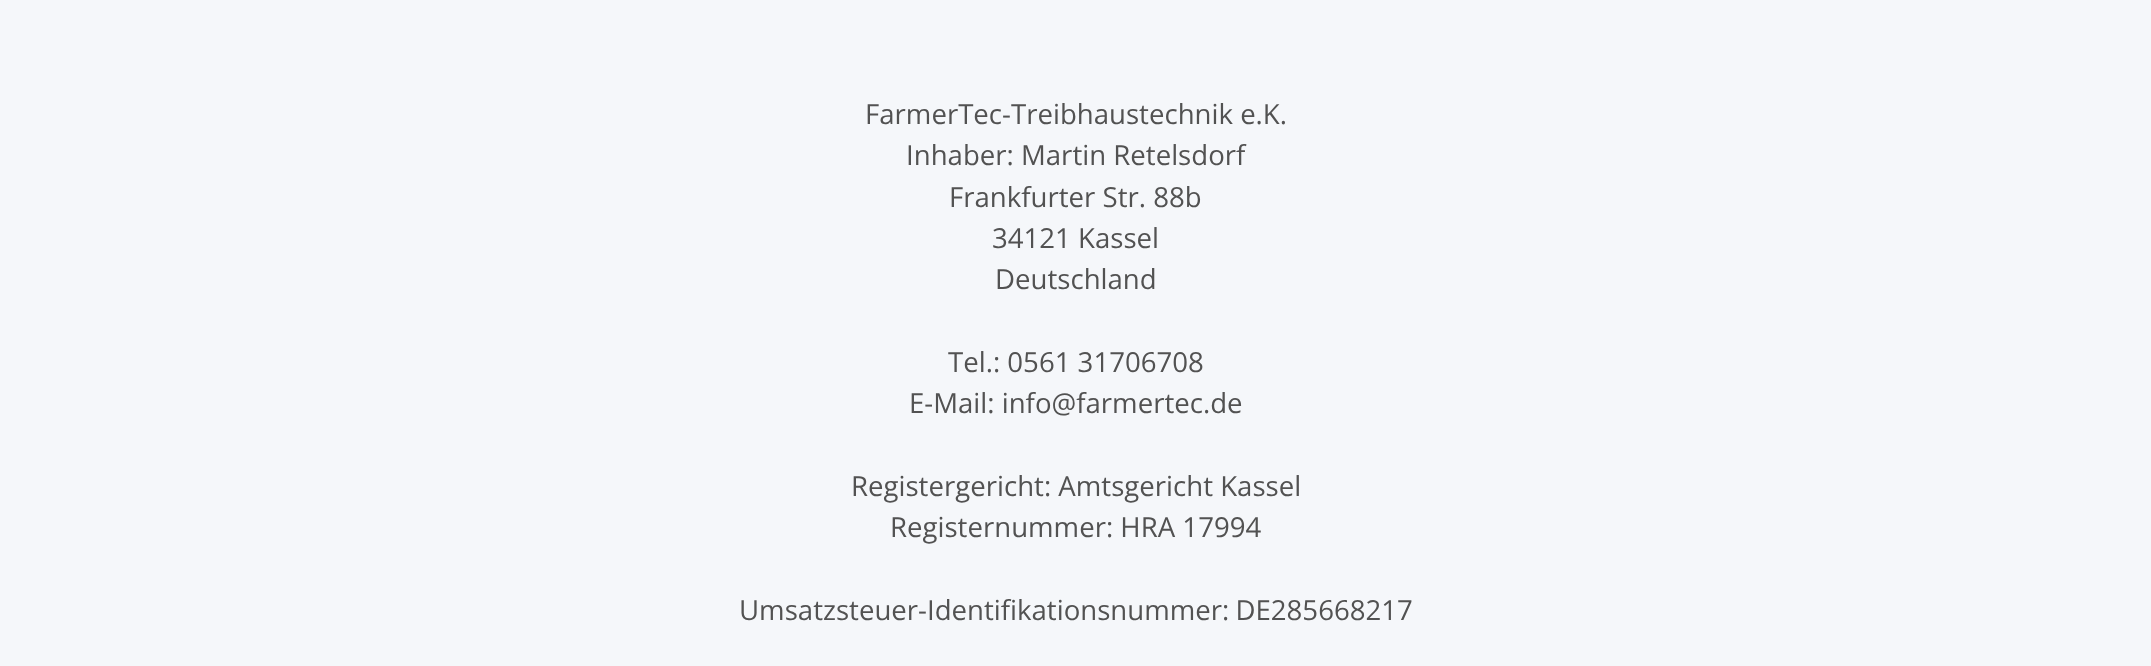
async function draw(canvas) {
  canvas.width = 2151;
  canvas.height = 666;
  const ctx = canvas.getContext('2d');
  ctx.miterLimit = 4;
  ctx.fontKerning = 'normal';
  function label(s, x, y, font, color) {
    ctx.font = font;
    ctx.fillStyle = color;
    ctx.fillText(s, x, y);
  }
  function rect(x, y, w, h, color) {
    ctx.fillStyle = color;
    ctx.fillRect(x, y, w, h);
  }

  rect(0, 0, 2151, 666, '#f5f7fa');
  label('FarmerTec-Treibhaustechnik e.K.', 865, 124, '27.6px Open Sans', '#525252');
  label('Inhaber: Martin Retelsdorf', 906, 165, '27.6px Open Sans', '#525252');
  label('Frankfurter Str. 88b', 949, 207, '27.6px Open Sans', '#525252');
  label('34121 Kassel', 992, 248, '27.6px Open Sans', '#525252');
  label('Deutschland', 995, 289, '27.6px Open Sans', '#525252');
  label('Tel.: 0561 31706708', 948, 372, '27.6px Open Sans', '#525252');
  label('E-Mail: info@farmertec.de', 909, 413, '27.6px Open Sans', '#525252');
  label('Registergericht: Amtsgericht Kassel', 851, 496, '27.6px Open Sans', '#525252');
  label('Registernummer: HRA 17994', 890, 537, '27.6px Open Sans', '#525252');
  ctx.wordSpacing = '-1px';
  label('Umsatzsteuer-Identifikationsnummer: DE285668217', 739, 620, '27.6px Open Sans', '#525252');
}

draw(document.querySelector('canvas'));
